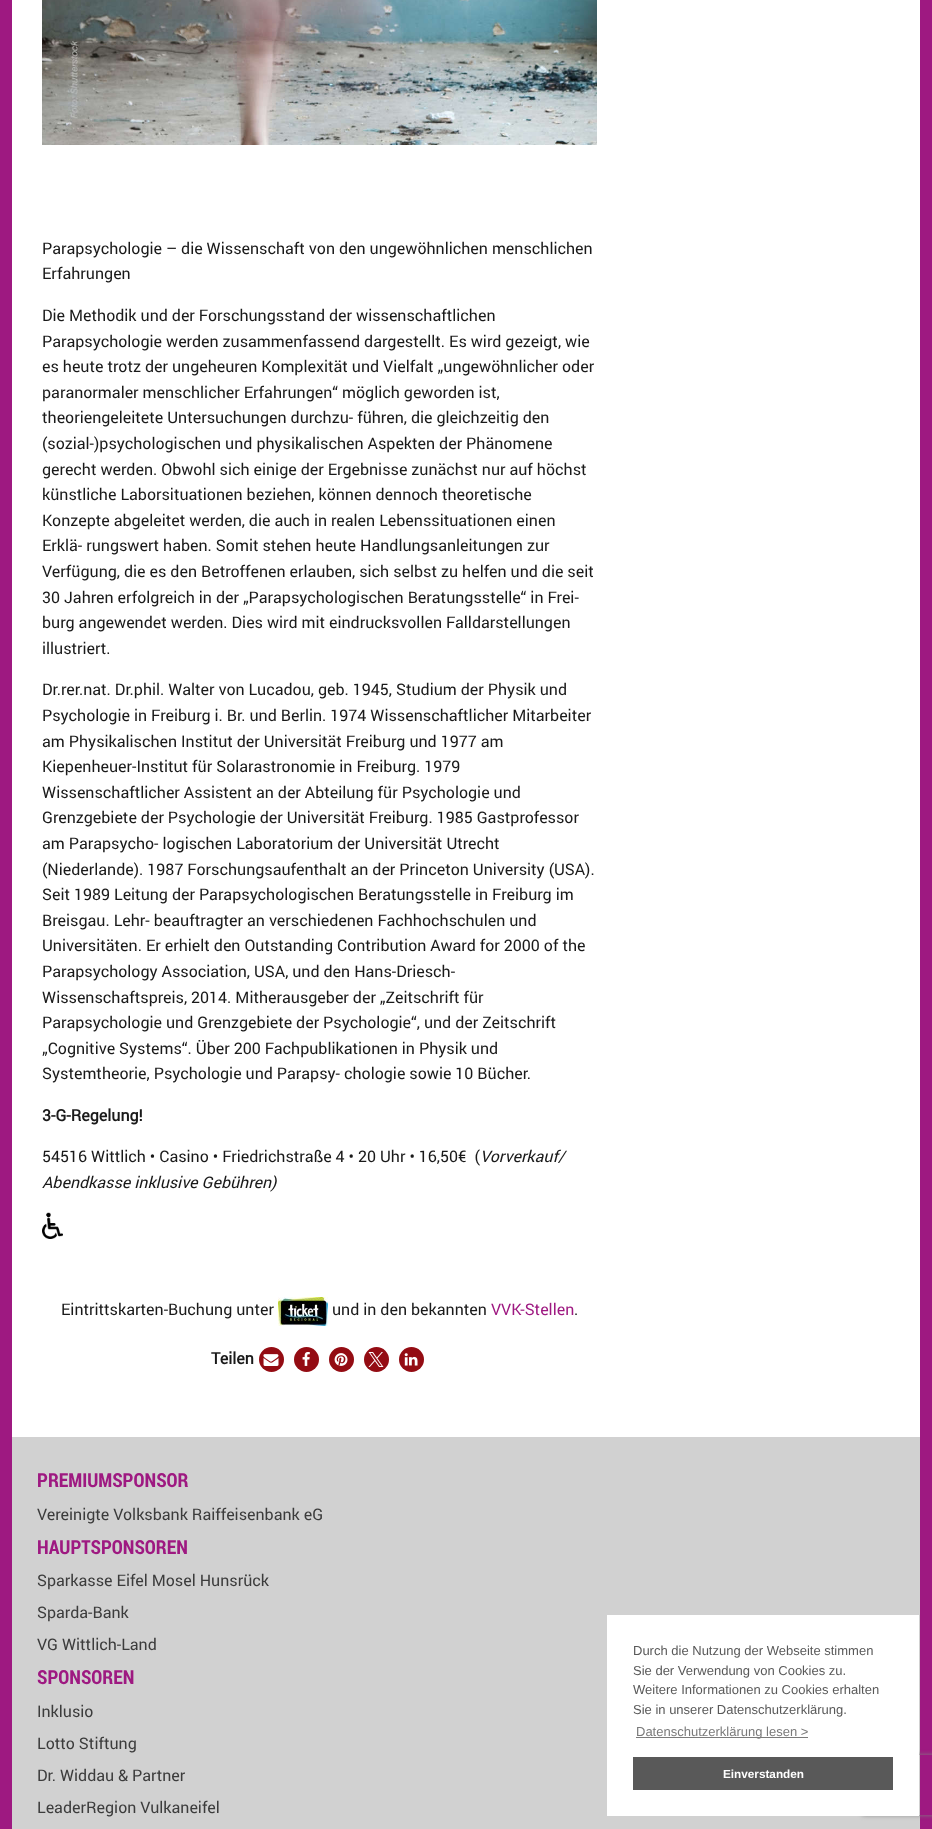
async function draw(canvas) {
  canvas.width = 932;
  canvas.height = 1829;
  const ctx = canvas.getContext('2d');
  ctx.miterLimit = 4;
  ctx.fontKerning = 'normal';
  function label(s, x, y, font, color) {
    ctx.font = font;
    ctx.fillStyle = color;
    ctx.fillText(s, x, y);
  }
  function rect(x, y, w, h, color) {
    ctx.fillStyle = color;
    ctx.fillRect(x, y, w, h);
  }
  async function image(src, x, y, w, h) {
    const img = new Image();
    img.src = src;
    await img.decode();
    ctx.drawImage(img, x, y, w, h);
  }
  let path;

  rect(0, 0, 932, 1829, '#fff');
  rect(920, 0, 12, 1829, '#9e1981');
  rect(0, 0, 12, 1829, '#9e1981');
  await image('assets/img1.png', 42, 0, 555, 145);
  label('Parapsychologie – die Wissenschaft von den ungewöhnlichen menschlichen', 42, 254, '16px Roboto', '#1a1a1a');
  label('Erfahrungen', 42, 279, '16px Roboto', '#1a1a1a');
  label('Die Methodik und der Forschungsstand der wissenschaftlichen', 42, 321, '16px Roboto', '#1a1a1a');
  label('Parapsychologie werden zusammenfassend dargestellt. Es wird gezeigt, wie', 42, 347, '16px Roboto', '#1a1a1a');
  label('es heute trotz der ungeheuren Komplexität und Vielfalt „ungewöhnlicher oder', 42, 372, '16px Roboto', '#1a1a1a');
  label('paranormaler menschlicher Erfahrungen“ möglich geworden ist,', 42, 398, '16px Roboto', '#1a1a1a');
  label('theoriengeleitete Untersuchungen durchzu- führen, die gleichzeitig den', 42, 423, '16px Roboto', '#1a1a1a');
  label('(sozial-)psychologischen und physikalischen Aspekten der Phänomene', 42, 449, '16px Roboto', '#1a1a1a');
  label('gerecht werden. Obwohl sich einige der Ergebnisse zunächst nur auf höchst', 42, 475, '16px Roboto', '#1a1a1a');
  label('künstliche Laborsituationen beziehen, können dennoch theoretische', 42, 500, '16px Roboto', '#1a1a1a');
  label('Konzepte abgeleitet werden, die auch in realen Lebenssituationen einen', 42, 526, '16px Roboto', '#1a1a1a');
  label('Erklä- rungswert haben. Somit stehen heute Handlungsanleitungen zur', 42, 551, '16px Roboto', '#1a1a1a');
  label('Verfügung, die es den Betroffenen erlauben, sich selbst zu helfen und die seit', 42, 577, '16px Roboto', '#1a1a1a');
  label('30 Jahren erfolgreich in der „Parapsychologischen Beratungsstelle“ in Frei-', 42, 603, '16px Roboto', '#1a1a1a');
  label('burg angewendet werden. Dies wird mit eindrucksvollen Falldarstellungen', 42, 628, '16px Roboto', '#1a1a1a');
  label('illustriert.', 42, 654, '16px Roboto', '#1a1a1a');
  label('Dr.rer.nat. Dr.phil. Walter von Lucadou, geb. 1945, Studium der Physik und', 42, 695, '16px Roboto', '#1a1a1a');
  label('Psychologie in Freiburg i. Br. und Berlin. 1974 Wissenschaftlicher Mitarbeiter', 42, 721, '16px Roboto', '#1a1a1a');
  label('am Physikalischen Institut der Universität Freiburg und 1977 am', 42, 747, '16px Roboto', '#1a1a1a');
  label('Kiepenheuer-Institut für Solarastronomie in Freiburg. 1979', 42, 772, '16px Roboto', '#1a1a1a');
  label('Wissenschaftlicher Assistent an der Abteilung für Psychologie und', 42, 798, '16px Roboto', '#1a1a1a');
  label('Grenzgebiete der Psychologie der Universität Freiburg. 1985 Gastprofessor', 42, 823, '16px Roboto', '#1a1a1a');
  label('am Parapsycho- logischen Laboratorium der Universität Utrecht', 42, 849, '16px Roboto', '#1a1a1a');
  label('(Niederlande). 1987 Forschungsaufenthalt an der Princeton University (USA).', 42, 875, '16px Roboto', '#1a1a1a');
  label('Seit 1989 Leitung der Parapsychologischen Beratungsstelle in Freiburg im', 42, 900, '16px Roboto', '#1a1a1a');
  label('Breisgau. Lehr- beauftragter an verschiedenen Fachhochschulen und', 42, 926, '16px Roboto', '#1a1a1a');
  label('Universitäten. Er erhielt den Outstanding Contribution Award for 2000 of the', 42, 951, '16px Roboto', '#1a1a1a');
  label('Parapsychology Association, USA, und den Hans-Driesch-', 42, 977, '16px Roboto', '#1a1a1a');
  label('Wissenschaftspreis, 2014. Mitherausgeber der „Zeitschrift für', 42, 1003, '16px Roboto', '#1a1a1a');
  label('Parapsychologie und Grenzgebiete der Psychologie“, und der Zeitschrift', 42, 1028, '16px Roboto', '#1a1a1a');
  label('„Cognitive Systems“. Über 200 Fachpublikationen in Physik und', 42, 1054, '16px Roboto', '#1a1a1a');
  label('Systemtheorie, Psychologie und Parapsy- chologie sowie 10 Bücher.', 42, 1079, '16px Roboto', '#1a1a1a');
  label('3-G-Regelung!', 42, 1121, 'bold 16px Roboto', '#1a1a1a');
  label('54516 Wittlich • Casino • Friedrichstraße 4 • 20 Uhr • 16,50€  (', 42, 1162, '16px Roboto', '#1a1a1a');
  label('Vorverkauf/', 480, 1162, 'italic 16px Roboto', '#1a1a1a');
  label('Abendkasse inklusive Gebühren)', 42, 1188, 'italic 16px Roboto', '#1a1a1a');
  await image('assets/img2.png', 42, 1212, 21, 27);
  label('Eintrittskarten-Buchung unter', 61, 1315, '16px Roboto', '#1a1a1a');
  await image('assets/img3.png', 278, 1297, 50, 29);
  label('und in den bekannten', 332, 1315, '16px Roboto', '#1a1a1a');
  label('VVK-Stellen', 491, 1315, '16px Roboto', '#9e1981');
  label('.', 574, 1315, '16px Roboto', '#1a1a1a');
  label('Teilen', 211, 1364, 'bold 16px Roboto', '#1a1a1a');
  ctx.fillStyle = '#940c13';
  ctx.beginPath();
  ctx.arc(271.5, 1359.5, 12.5, 0, 2 * Math.PI);
  ctx.fill();
  await image('assets/img4.png', 263, 1354, 16, 12);
  ctx.beginPath();
  ctx.arc(306.5, 1359.5, 12.5, 0, 2 * Math.PI);
  ctx.fill();
  await image('assets/img5.png', 302, 1352, 8, 14);
  ctx.beginPath();
  ctx.arc(341.5, 1359.5, 12.5, 0, 2 * Math.PI);
  ctx.fill();
  await image('assets/img6.png', 334, 1353, 14, 13);
  ctx.beginPath();
  ctx.arc(376.5, 1359.5, 12.5, 0, 2 * Math.PI);
  ctx.fill();
  await image('assets/img7.png', 368, 1352, 16, 15);
  ctx.beginPath();
  ctx.arc(411.5, 1359.5, 12.5, 0, 2 * Math.PI);
  ctx.fill();
  await image('assets/img8.png', 404, 1353, 14, 13);
  rect(12, 1437, 908, 392, '#d1d1d1');
  label('PREMIUMSPONSOR', 37, 1487, 'bold 19.25px Roboto Condensed', '#9e1981');
  label('Vereinigte Volksbank Raiffeisenbank eG', 37, 1520, '16px Roboto', '#3c3c3c');
  label('HAUPTSPONSOREN', 37, 1554, 'bold 19.25px Roboto Condensed', '#9e1981');
  label('Sparkasse Eifel Mosel Hunsrück', 37, 1586, '16px Roboto', '#3c3c3c');
  label('Sparda-Bank', 37, 1618, '16px Roboto', '#3c3c3c');
  label('VG Wittlich-Land', 37, 1650, '16px Roboto', '#3c3c3c');
  label('SPONSOREN', 37, 1684, 'bold 19.25px Roboto Condensed', '#9e1981');
  label('Inklusio', 37, 1717, '16px Roboto', '#3c3c3c');
  label('Lotto Stiftung', 37, 1749, '16px Roboto', '#3c3c3c');
  label('Dr. Widdau & Partner', 37, 1781, '16px Roboto', '#3c3c3c');
  label('LeaderRegion Vulkaneifel', 37, 1813, '16px Roboto', '#3c3c3c');
  ctx.save();
  path = new Path2D('M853 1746H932V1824H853ZM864 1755H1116C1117 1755 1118 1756 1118 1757V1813C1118 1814 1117 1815 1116 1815H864C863 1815 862 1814 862 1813V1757C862 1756 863 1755 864 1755Z');
  ctx.clip(path, 'evenodd');
  ctx.fillStyle = '#808080';
  ctx.filter = 'blur(2.5px)';
  ctx.beginPath();
  ctx.roundRect(862, 1755, 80, 60, 2);
  ctx.fill();
  ctx.filter = 'none';
  ctx.restore();
  rect(607, 1615, 312, 201, '#fff');
  label('Durch die Nutzung der Webseite stimmen', 633, 1655, '13px Liberation Sans', '#595959');
  label('Sie der Verwendung von Cookies zu.', 633, 1675, '13px Liberation Sans', '#595959');
  label('Weitere Informationen zu Cookies erhalten', 633, 1694, '13px Liberation Sans', '#595959');
  label('Sie in unserer Datenschutzerklärung.', 633, 1714, '13px Liberation Sans', '#595959');
  rect(636, 1737, 172, 1, '#7a7a7a');
  label('Datenschutzerklärung lesen >', 636, 1736, '13px Liberation Sans', '#7a7a7a');
  rect(633, 1757, 260, 33, '#595959');
  label('Einverstanden', 723, 1778, 'bold 11.75px Liberation Sans', '#fff');
}

draw(document.querySelector('canvas'));
